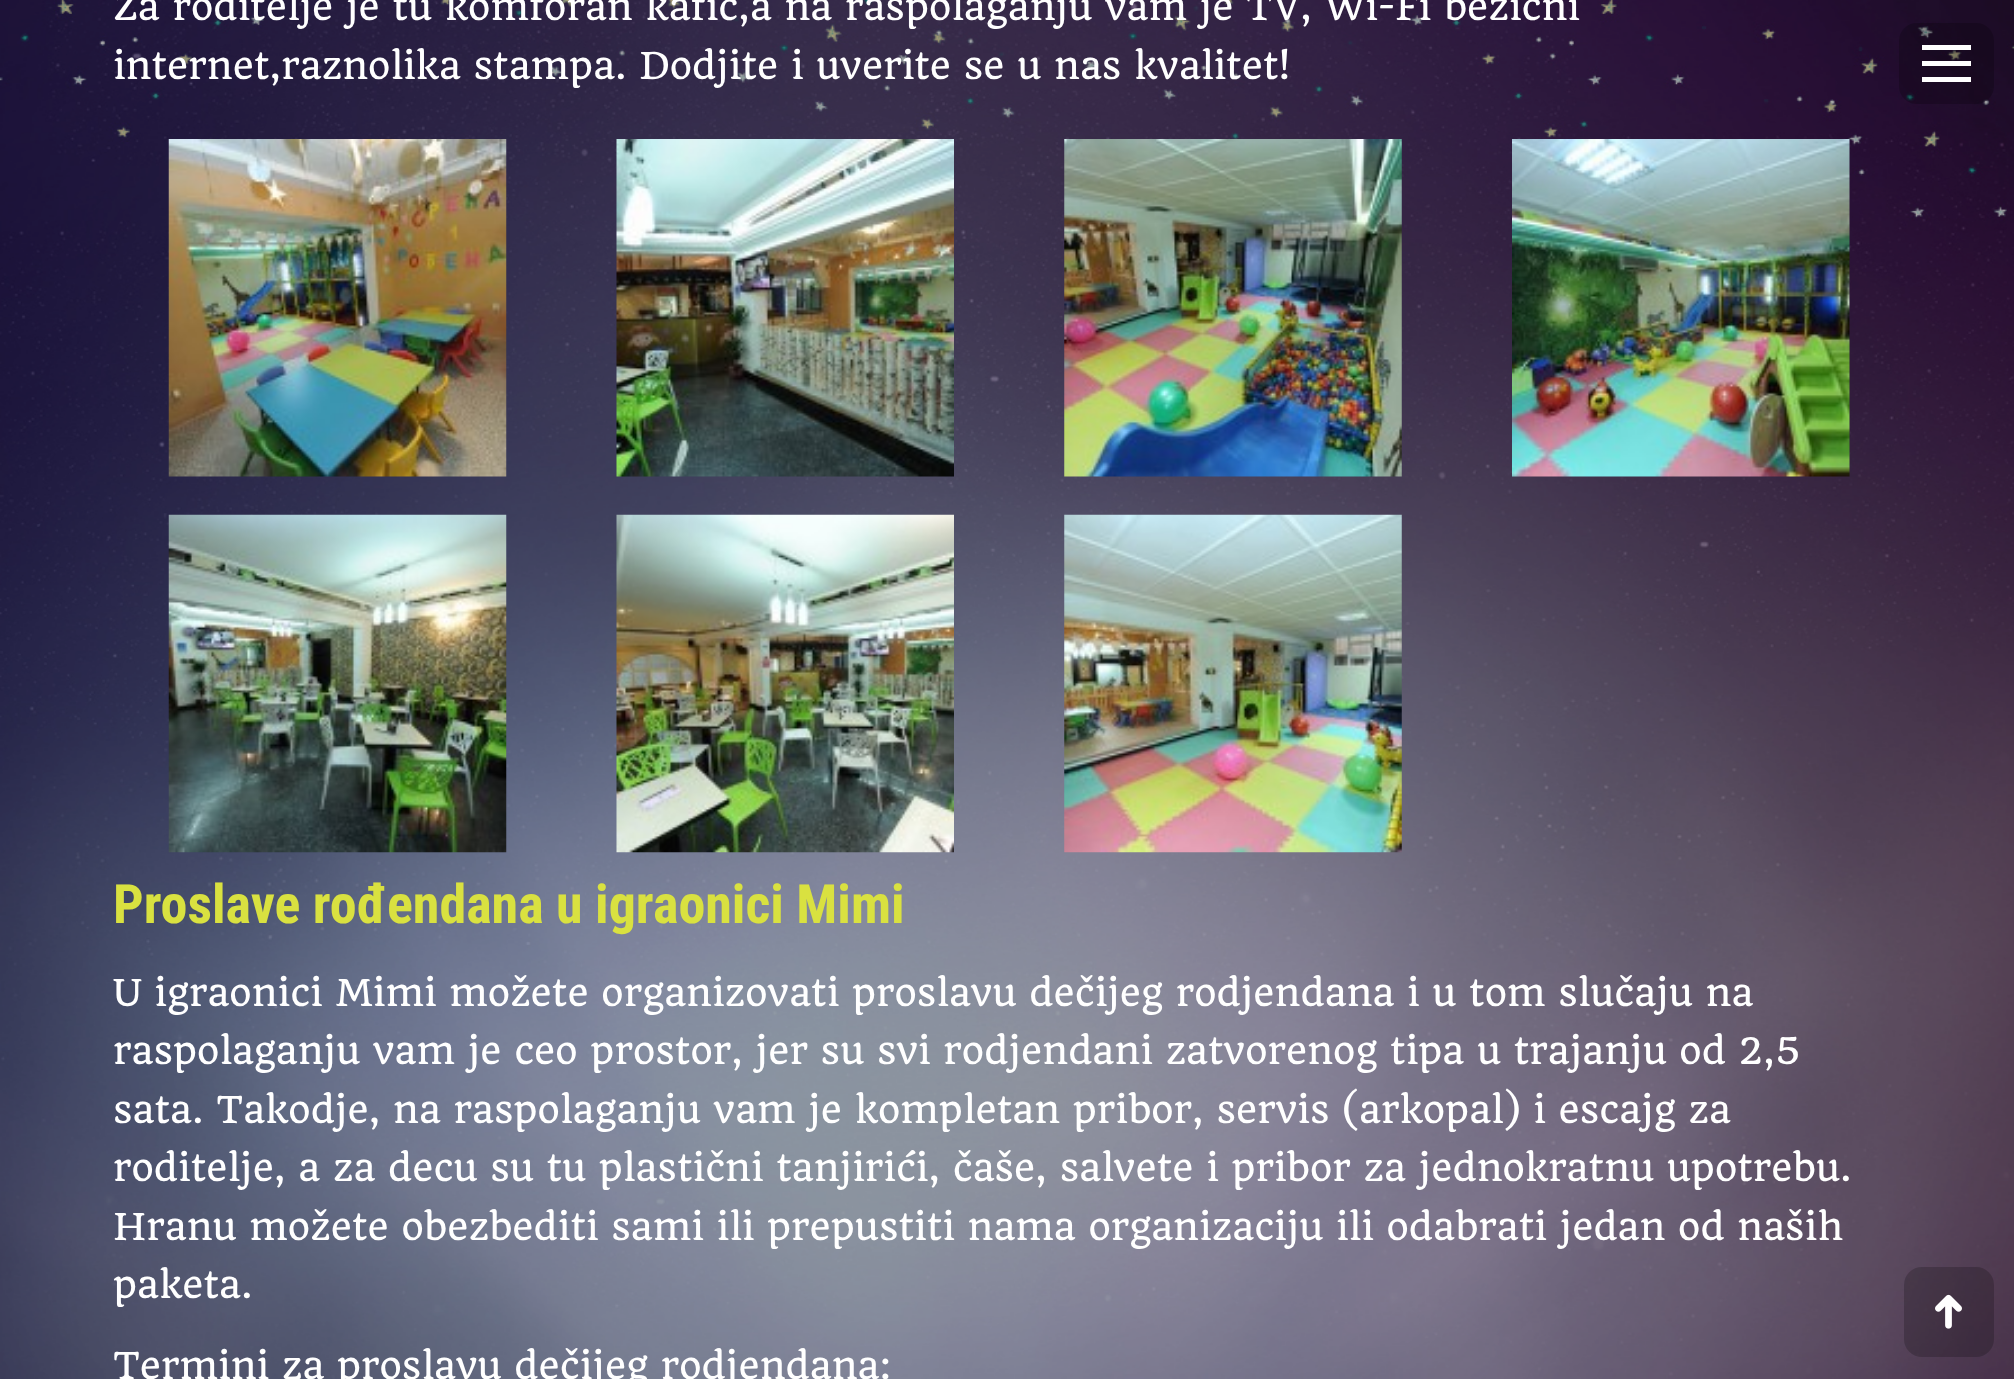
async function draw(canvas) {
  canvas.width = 2014;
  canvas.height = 1379;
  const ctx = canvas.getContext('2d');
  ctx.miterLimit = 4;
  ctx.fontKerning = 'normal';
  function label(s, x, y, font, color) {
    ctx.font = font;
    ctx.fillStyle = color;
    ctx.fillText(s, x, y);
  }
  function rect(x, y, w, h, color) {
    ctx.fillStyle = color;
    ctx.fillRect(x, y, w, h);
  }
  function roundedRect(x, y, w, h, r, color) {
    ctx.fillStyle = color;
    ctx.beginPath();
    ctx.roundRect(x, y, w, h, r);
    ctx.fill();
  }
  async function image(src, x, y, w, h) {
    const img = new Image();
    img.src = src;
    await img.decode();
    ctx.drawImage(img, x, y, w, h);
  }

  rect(0, 0, 2014, 1379, '#fff');
  await image('assets/img1.png', 0, 0, 2014, 1379);
  label('Za roditelje je tu komforan kafic,a na raspolaganju vam je TV, Wi-Fi bezicni', 113, 20, '36px Quando', '#fff');
  label('internet,raznolika stampa. Dodjite i uverite se u nas kvalitet!', 113, 79, '36px Quando', '#fff');
  await image('assets/img2.png', 168, 139, 339, 338);
  await image('assets/img3.png', 616, 139, 338, 338);
  await image('assets/img4.png', 1064, 139, 338, 338);
  await image('assets/img5.png', 1512, 139, 338, 338);
  await image('assets/img6.png', 168, 514, 339, 339);
  await image('assets/img7.png', 616, 514, 338, 339);
  await image('assets/img8.png', 1064, 514, 338, 339);
  label('Proslave rođendana u igraonici Mimi', 113, 923, 'bold 54px Roboto Condensed', '#d9e140');
  label('U igraonici Mimi možete organizovati proslavu dečijeg rodjendana i u tom slučaju na', 113, 1006, '36px Quando', '#fff');
  label('raspolaganju vam je ceo prostor, jer su svi rodjendani zatvorenog tipa u trajanju od 2,5', 113, 1064, '36px Quando', '#fff');
  label('sata. Takodje, na raspolaganju vam je kompletan pribor, servis (arkopal) i escajg za', 113, 1123, '36px Quando', '#fff');
  label('roditelje, a za decu su tu plastični tanjirići, čaše, salvete i pribor za jednokratnu upotrebu.', 113, 1181, '36px Quando', '#fff');
  label('Hranu možete obezbediti sami ili prepustiti nama organizaciju ili odabrati jedan od naših', 113, 1240, '36px Quando', '#fff');
  label('paketa.', 113, 1298, '36px Quando', '#fff');
  label('Termini za proslavu dečijeg rodjendana:', 113, 1379, '36px Quando', '#fff');
  roundedRect(1899, 23, 95, 81, 18, '#00000033');
  rect(1922, 45, 49, 5, '#fff');
  rect(1922, 61, 49, 5, '#fff');
  rect(1922, 77, 49, 5, '#fff');
  roundedRect(1904, 1267, 90, 90, 18, '#00000033');
  await image('assets/img9.png', 1935, 1294, 27, 35);
}

draw(document.querySelector('canvas'));
